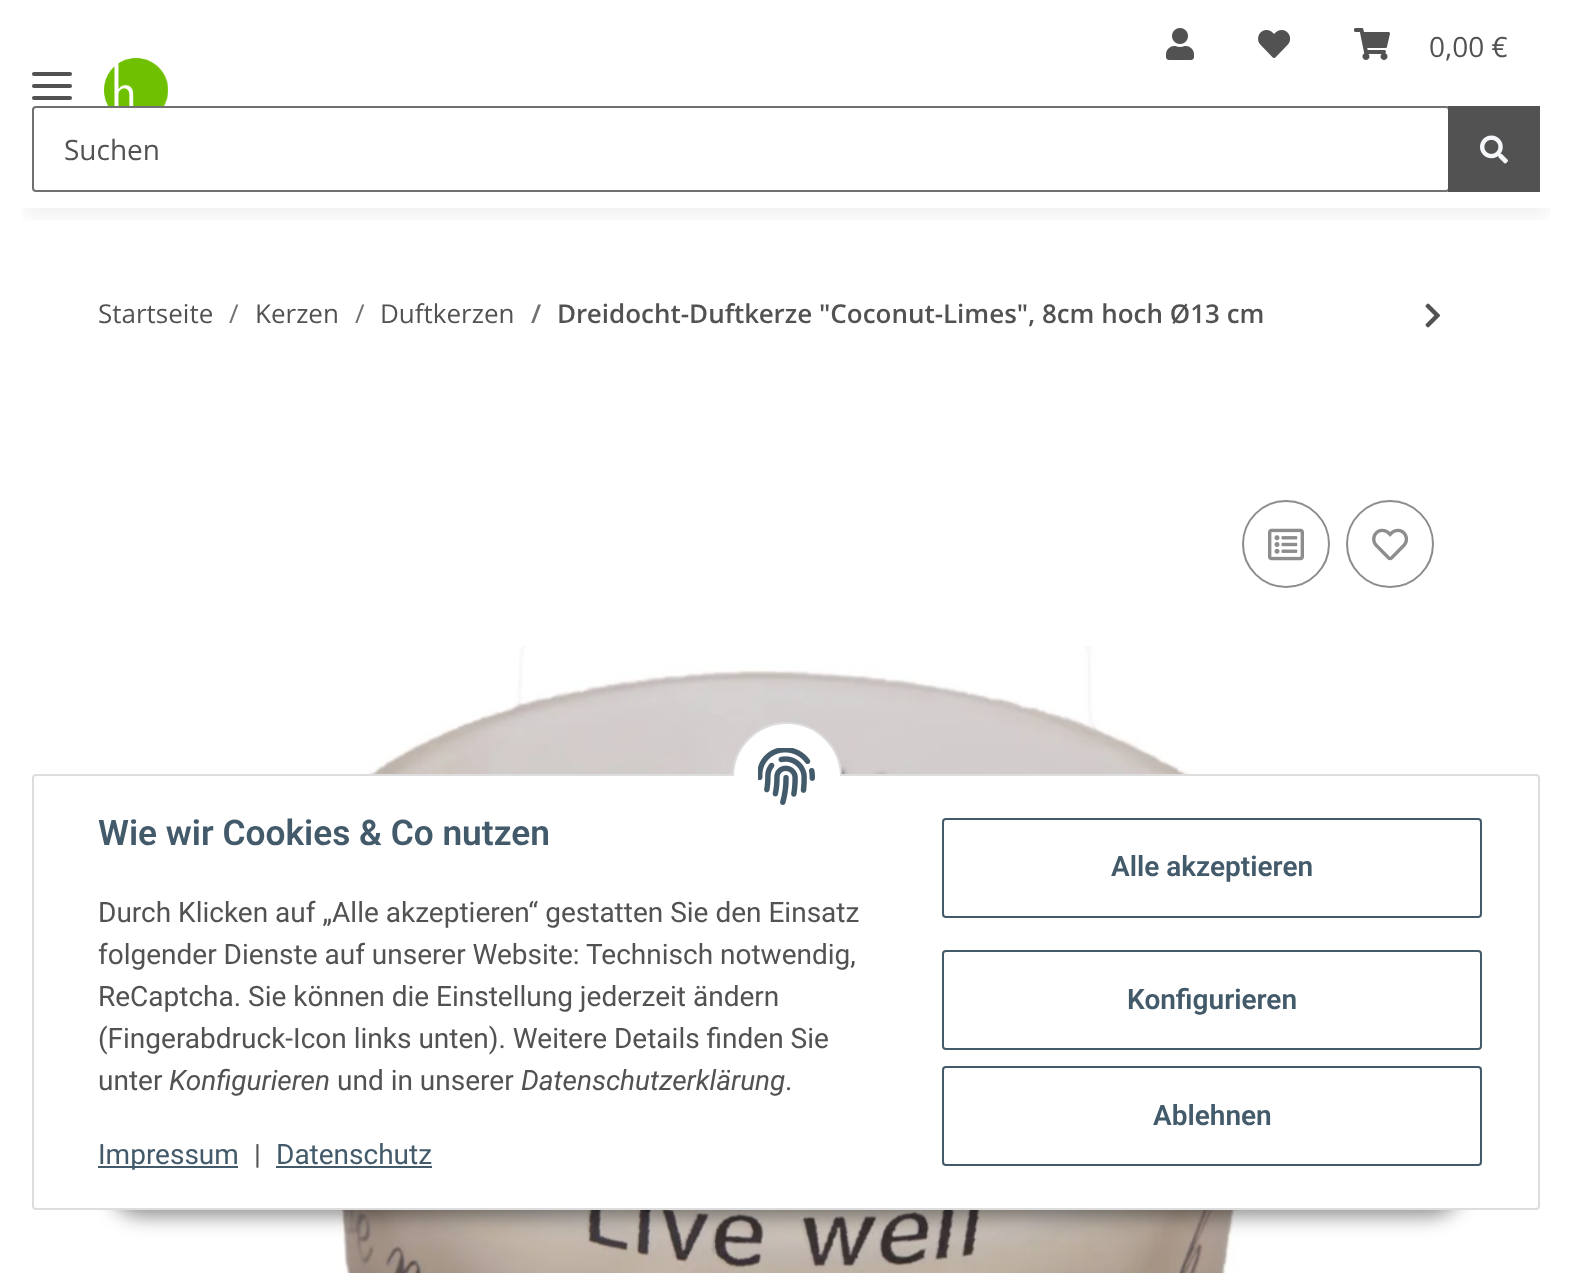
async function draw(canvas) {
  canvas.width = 1572;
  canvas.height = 1273;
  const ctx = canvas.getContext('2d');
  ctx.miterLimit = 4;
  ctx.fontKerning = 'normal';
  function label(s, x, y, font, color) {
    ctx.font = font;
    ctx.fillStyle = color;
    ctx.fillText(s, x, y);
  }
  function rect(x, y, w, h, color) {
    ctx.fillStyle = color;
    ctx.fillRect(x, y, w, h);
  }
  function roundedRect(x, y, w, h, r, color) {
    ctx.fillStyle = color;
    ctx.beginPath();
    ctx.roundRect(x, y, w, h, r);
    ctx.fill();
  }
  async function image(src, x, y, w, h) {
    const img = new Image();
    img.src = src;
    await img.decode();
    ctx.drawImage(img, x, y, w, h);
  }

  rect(0, 0, 1572, 1273, '#fff');
  ctx.save();
  ctx.beginPath();
  ctx.rect(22, 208, 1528, 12);
  ctx.clip();
  ctx.fillStyle = '#0000000f';
  ctx.filter = 'blur(9px)';
  ctx.beginPath();
  ctx.rect(24, 56, 1524, 160);
  ctx.fill();
  ctx.filter = 'none';
  ctx.restore();
  await image('assets/img1.png', 1166, 28, 28, 32);
  await image('assets/img2.png', 1258, 30, 33, 28);
  await image('assets/img3.png', 1354, 28, 36, 32);
  label('0,00 €', 1429, 57, '28px Open Sans', '#525252');
  roundedRect(32, 84, 40, 4, 2, '#525252');
  roundedRect(32, 72, 40, 4, 2, '#525252');
  roundedRect(32, 96, 40, 4, 2, '#525252');
  await image('assets/img4.png', 104, 57, 64, 49);
  ctx.beginPath();
  ctx.roundRect(33, 107, 1416, 84, 3);
  ctx.strokeStyle = '#707070';
  ctx.lineWidth = 2;
  ctx.stroke();
  label('Suchen', 64, 160, '28px Open Sans', '#525252');
  rect(1448, 106, 92, 86, '#525252');
  await image('assets/img5.png', 1480, 135, 28, 29);
  label('Startseite', 98, 323, '26px Open Sans', '#525252');
  label('/', 229, 323, '26px Open Sans', '#707070');
  label('Kerzen', 255, 323, '26px Open Sans', '#525252');
  label('/', 355, 323, '26px Open Sans', '#707070');
  label('Duftkerzen', 380, 323, '26px Open Sans', '#525252');
  label('/', 531, 323, '600 26px Open Sans', '#707070');
  label('Dreidocht-Duftkerze "Coconut-Limes", 8cm hoch Ø13 cm', 557, 323, '600 26px Open Sans', '#525252');
  await image('assets/img6.png', 1425, 303, 15, 25);
  ctx.beginPath();
  ctx.arc(1286, 544, 43, 0, 2 * Math.PI);
  ctx.strokeStyle = '#8d8d8d';
  ctx.stroke();
  await image('assets/img7.png', 1268, 528, 36, 33);
  ctx.beginPath();
  ctx.arc(1390, 544, 43, 0, 2 * Math.PI);
  ctx.stroke();
  await image('assets/img8.png', 1372, 528, 37, 33);
  await image('assets/img9.png', 303, 646, 987, 627);
  ctx.fillStyle = '#00000073';
  ctx.filter = 'blur(10px)';
  ctx.beginPath();
  ctx.roundRect(110, 1152, 1352, 64, 32);
  ctx.fill();
  ctx.filter = 'none';
  ctx.fillStyle = '#fff';
  ctx.beginPath();
  ctx.roundRect(33, 775, 1506, 434, 3);
  ctx.fill();
  ctx.strokeStyle = '#ddd';
  ctx.stroke();
  ctx.beginPath();
  ctx.arc(787, 777, 54, 0, 2 * Math.PI);
  ctx.fill();
  ctx.stroke();
  rect(732, 776, 110, 56, '#fff');
  await image('assets/img10.png', 758, 748, 57, 57);
  label('Wie wir Cookies & Co nutzen', 98, 845, '600 35.25px Roboto', '#435a6b');
  label('Durch Klicken auf „Alle akzeptieren“ gestatten Sie den Einsatz', 98, 922, '28px Roboto', '#525252');
  label('folgender Dienste auf unserer Website: Technisch notwendig,', 98, 964, '28px Roboto', '#525252');
  label('ReCaptcha. Sie können die Einstellung jederzeit ändern', 98, 1006, '28px Roboto', '#525252');
  label('(Fingerabdruck-Icon links unten). Weitere Details finden Sie', 98, 1048, '28px Roboto', '#525252');
  label('unter', 98, 1090, '28px Roboto', '#525252');
  label('Konfigurieren', 169, 1090, 'italic 28px Roboto', '#525252');
  label('und in unserer', 337, 1090, '28px Roboto', '#525252');
  label('Datenschutzerklärung', 521, 1090, 'italic 28px Roboto', '#525252');
  label('.', 785, 1090, '28px Roboto', '#525252');
  rect(98, 1166, 140, 2, '#435a6b');
  label('Impressum', 98, 1164, '28px Roboto', '#435a6b');
  label('|', 254, 1164, '28px Roboto', '#525252');
  label('Datenschutz', 276, 1164, '28px Roboto', '#435a6b');
  rect(276, 1166, 156, 2, '#435a6b');
  ctx.beginPath();
  ctx.roundRect(943, 819, 538, 98, 3);
  ctx.strokeStyle = '#435a6b';
  ctx.stroke();
  label('Alle akzeptieren', 1111, 876, '600 28px Roboto', '#435a6b');
  ctx.beginPath();
  ctx.roundRect(943, 951, 538, 98, 3);
  ctx.stroke();
  label('Konfigurieren', 1127, 1009, '600 28px Roboto', '#435a6b');
  ctx.beginPath();
  ctx.roundRect(943, 1067, 538, 98, 3);
  ctx.stroke();
  label('Ablehnen', 1153, 1125, '600 28px Roboto', '#435a6b');
}

draw(document.querySelector('canvas'));
